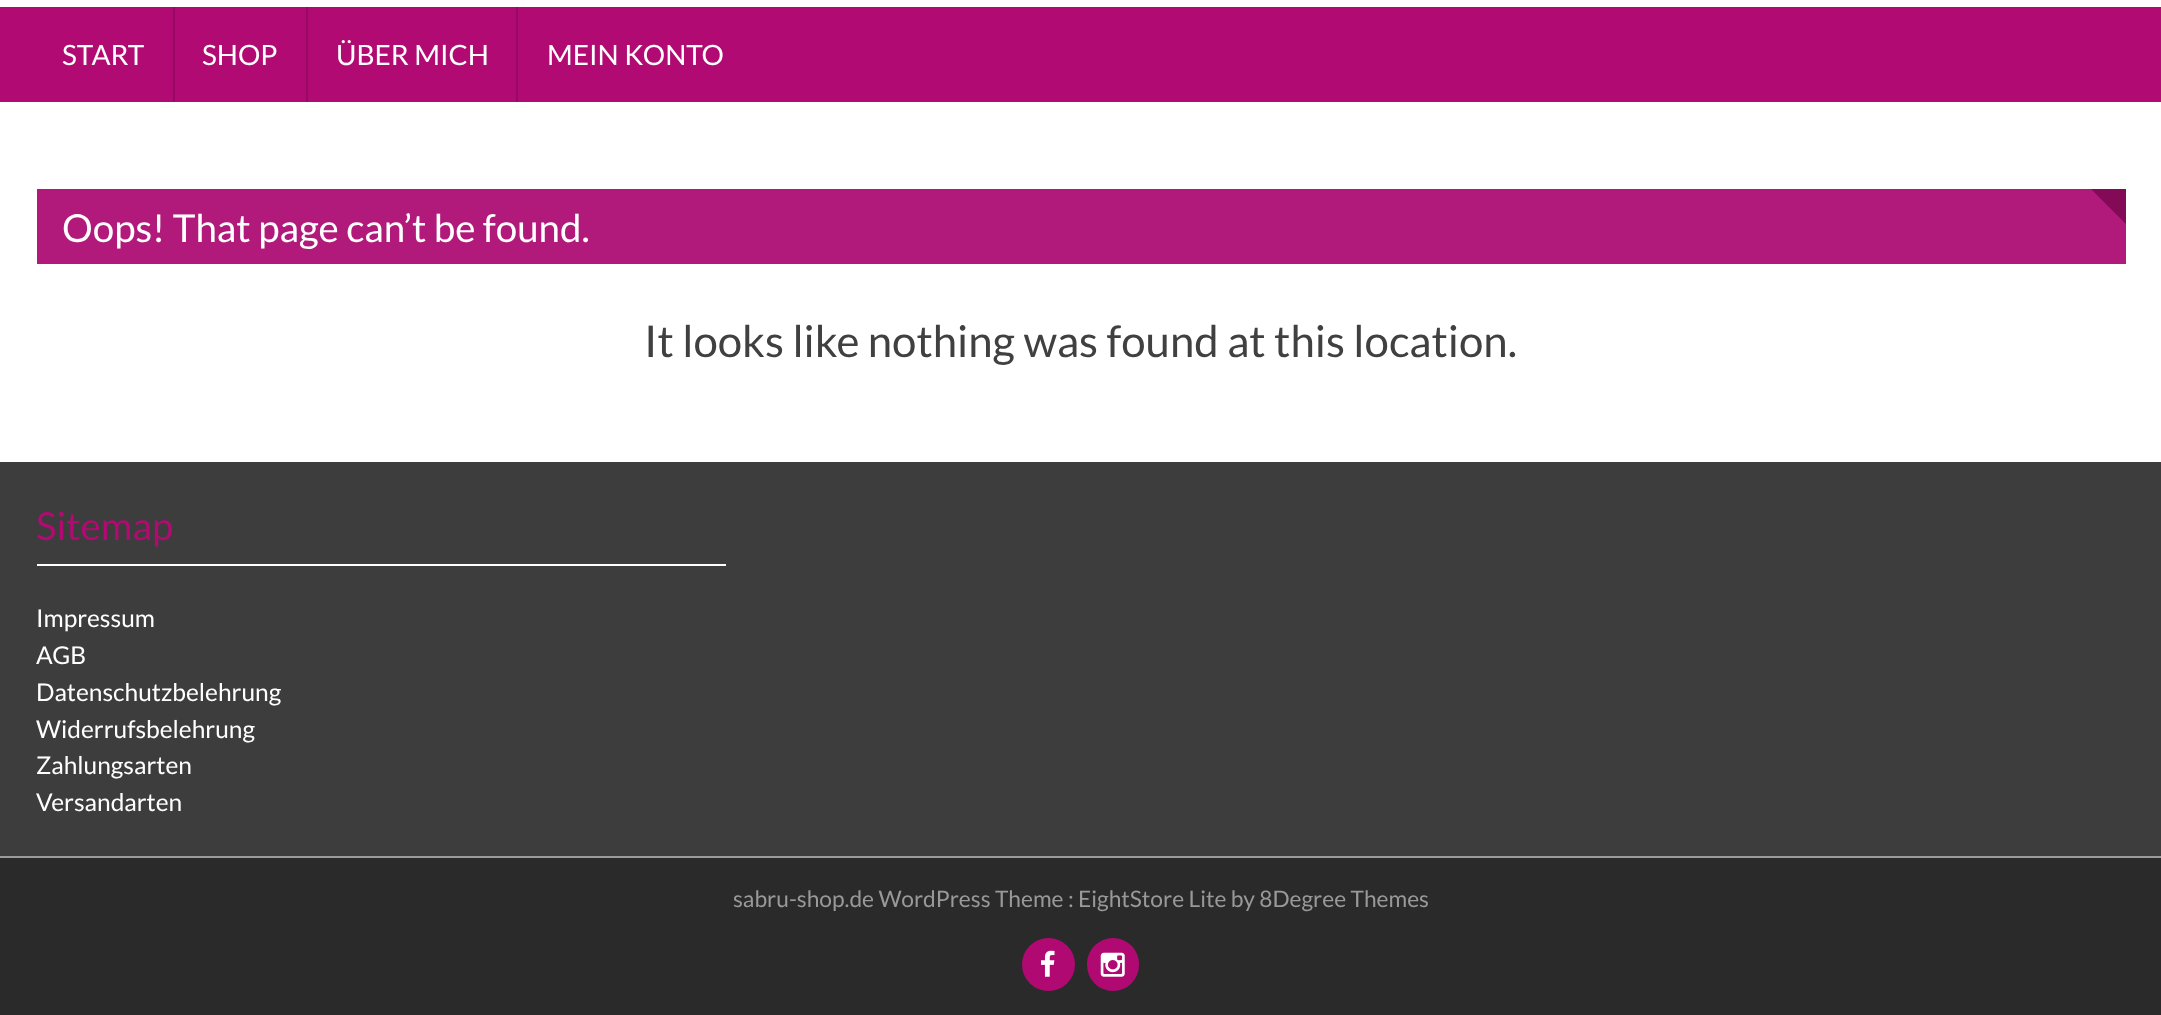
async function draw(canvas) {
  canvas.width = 2161;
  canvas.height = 1015;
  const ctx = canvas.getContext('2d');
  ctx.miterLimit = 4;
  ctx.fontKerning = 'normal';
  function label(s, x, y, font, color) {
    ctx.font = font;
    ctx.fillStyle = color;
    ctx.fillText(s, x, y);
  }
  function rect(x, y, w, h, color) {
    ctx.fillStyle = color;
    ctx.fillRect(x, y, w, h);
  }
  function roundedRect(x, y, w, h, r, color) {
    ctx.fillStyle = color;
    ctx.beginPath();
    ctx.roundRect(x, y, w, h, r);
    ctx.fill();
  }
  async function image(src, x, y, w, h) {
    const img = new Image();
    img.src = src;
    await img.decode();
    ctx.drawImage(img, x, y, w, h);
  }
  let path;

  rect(0, 0, 2161, 1015, '#fff');
  rect(0, 7, 2161, 95, '#b10b73');
  label('START', 62, 65, '28px Lato', '#fff');
  rect(173, 7, 2, 95, '#980963');
  label('SHOP', 202, 65, '28px Lato', '#fff');
  rect(306, 7, 2, 95, '#980963');
  label('ÜBER MICH', 336, 65, '28px Lato', '#fff');
  rect(516, 7, 2, 95, '#980963');
  label('MEIN KONTO', 547, 65, '28px Lato', '#fff');
  rect(37, 189, 2089, 75, '#b11a7a');
  ctx.fillStyle = '#820a56';
  path = new Path2D('M2091 189H2126V224Z');
  ctx.fill(path);
  label('Oops! That page can’t be found.', 62, 242, '38.5px Lato', '#fff');
  label('It looks like nothing was found at this location.', 644, 357, '43.75px Lato', '#404040');
  rect(0, 462, 2161, 394, '#3c3d3c');
  rect(37, 564, 689, 2, '#fff');
  label('Sitemap', 36, 540, '38.5px Lato', '#b10b73');
  label('Impressum', 36, 627, '24.5px Lato', '#fff');
  label('AGB', 36, 664, '24.5px Lato', '#fff');
  label('Datenschutzbelehrung', 36, 701, '24.5px Lato', '#fff');
  label('Widerrufsbelehrung', 36, 738, '24.5px Lato', '#fff');
  label('Zahlungsarten', 36, 774, '24.5px Lato', '#fff');
  label('Versandarten', 36, 811, '24.5px Lato', '#fff');
  rect(0, 858, 2161, 157, '#2a2a2a');
  rect(0, 856, 2161, 2, '#9b9b9b');
  label('sabru-shop.de WordPress Theme : EightStore Lite by 8Degree Themes', 733, 907, '22.75px Lato', '#999');
  ctx.fillStyle = '#b00a72';
  ctx.beginPath();
  ctx.arc(1048.5, 964.5, 26.5, 0, 2 * Math.PI);
  ctx.fill();
  await image('assets/img1.png', 1041, 950, 14, 27);
  roundedRect(1087, 938, 52, 53, 26, '#b00a72');
  await image('assets/img2.png', 1100, 952, 25, 25);
}

draw(document.querySelector('canvas'));
